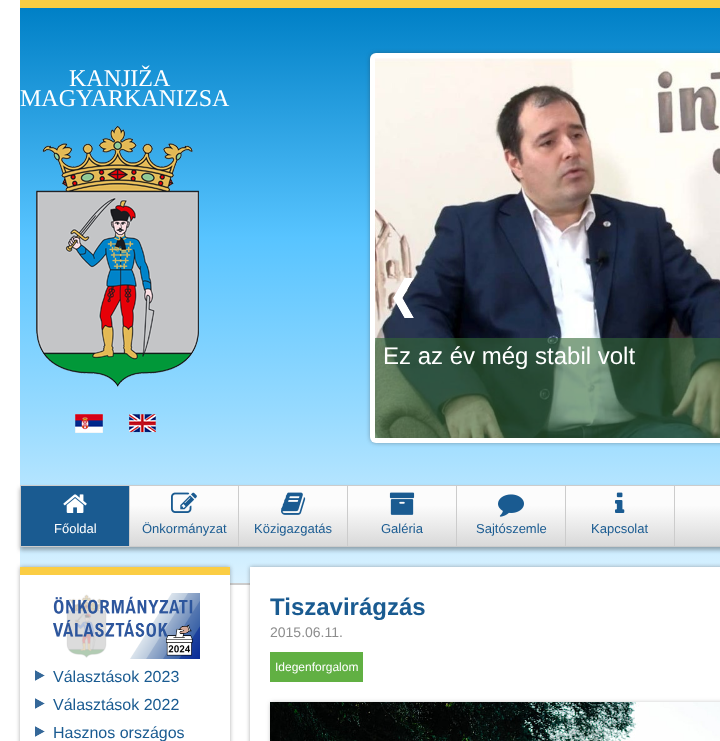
async function draw(canvas) {
  canvas.width = 720;
  canvas.height = 741;
  const ctx = canvas.getContext('2d');
  ctx.miterLimit = 4;
  ctx.fontKerning = 'normal';
  function label(s, x, y, font, color) {
    ctx.font = font;
    ctx.fillStyle = color;
    ctx.fillText(s, x, y);
  }
  function rect(x, y, w, h, color) {
    ctx.fillStyle = color;
    ctx.fillRect(x, y, w, h);
  }
  function roundedRect(x, y, w, h, r, color) {
    ctx.fillStyle = color;
    ctx.beginPath();
    ctx.roundRect(x, y, w, h, r);
    ctx.fill();
  }
  async function image(src, x, y, w, h) {
    const img = new Image();
    img.src = src;
    await img.decode();
    ctx.drawImage(img, x, y, w, h);
  }
  let gradient;

  rect(0, 0, 720, 741, '#fff');
  gradient = ctx.createLinearGradient(380, 8, 380, 583);
  gradient.addColorStop(0, '#0080c6');
  gradient.addColorStop(0.4, '#58c4ff');
  gradient.addColorStop(0.7, '#96daff');
  gradient.addColorStop(1, '#dbf2ff');
  ctx.fillStyle = gradient;
  ctx.fillRect(20, 8, 700, 575);
  rect(20, 0, 700, 8, '#facd43');
  rect(230, 583, 20, 2, '#ccc');
  label('KANJIŽA', 69, 86, '24px Liberation Serif', '#fff');
  label('MAGYARKANIZSA', 20, 106, '24px Liberation Serif', '#fff');
  await image('assets/img1.png', 36, 126, 163, 261);
  await image('assets/img2.png', 75, 414, 28, 19);
  await image('assets/img3.png', 129, 414, 27, 19);
  ctx.fillStyle = '#32323266';
  ctx.filter = 'blur(2px)';
  ctx.beginPath();
  ctx.roundRect(370, 53, 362, 390, 6);
  ctx.fill();
  ctx.filter = 'none';
  roundedRect(370, 53, 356, 390, 6, '#fff');
  await image('assets/img5.png', 375, 58, 345, 380);
  await image('assets/img4.png', 393, 278, 21, 40);
  rect(375, 338, 345, 100, '#33673799');
  label('Ez az év még stabil volt', 383, 364, '24px Liberation Sans', '#fff');
  ctx.fillStyle = '#32323266';
  ctx.filter = 'blur(2px)';
  ctx.beginPath();
  ctx.rect(20, 488, 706, 62);
  ctx.fill();
  ctx.filter = 'none';
  gradient = ctx.createLinearGradient(561, 486, 561, 546);
  gradient.addColorStop(0.32, '#fcfcfc');
  gradient.addColorStop(1, '#d9d9d9');
  ctx.fillStyle = gradient;
  ctx.fillRect(130, 486, 590, 60);
  ctx.strokeStyle = '#ccc';
  ctx.strokeRect(20.5, 485.5, 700, 61);
  rect(129, 486, 1, 60, '#ccc');
  rect(21, 486, 108, 60, '#1a5b91');
  await image('assets/img6.png', 63, 494, 24, 19);
  label('Főoldal', 54, 533, '13px Liberation Sans', '#fff');
  rect(238, 486, 1, 60, '#ccc');
  await image('assets/img7.png', 171, 492, 26, 21);
  label('Önkormányzat', 142, 533, '13px Liberation Sans', '#1a5b91');
  rect(347, 486, 1, 60, '#ccc');
  await image('assets/img8.png', 281, 492, 25, 23);
  label('Közigazgatás', 254, 533, '13px Liberation Sans', '#1a5b91');
  rect(456, 486, 1, 60, '#ccc');
  await image('assets/img9.png', 389, 492, 26, 23);
  label('Galéria', 381, 533, '13px Liberation Sans', '#1a5b91');
  rect(565, 486, 1, 60, '#ccc');
  await image('assets/img10.png', 498, 494, 26, 23);
  label('Sajtószemle', 476, 533, '13px Liberation Sans', '#1a5b91');
  rect(674, 486, 1, 60, '#ccc');
  await image('assets/img11.png', 615, 492, 10, 21);
  label('Kapcsolat', 591, 533, '13px Liberation Sans', '#1a5b91');
  ctx.fillStyle = '#32323266';
  ctx.filter = 'blur(2px)';
  ctx.beginPath();
  ctx.rect(250, 567, 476, 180);
  ctx.fill();
  ctx.filter = 'none';
  rect(250, 567, 470, 174, '#fff');
  label('Tiszavirágzás', 270, 615, 'bold 24px Liberation Sans', '#1a5b91');
  label('2015.06.11.', 270, 637, '14px Liberation Sans', '#8d8d8d');
  rect(270, 652, 93, 30, '#61b043');
  label('Idegenforgalom', 275, 671, '12px Liberation Sans', '#fff');
  ctx.fillStyle = '#3232325c';
  ctx.filter = 'blur(2.5px)';
  ctx.beginPath();
  ctx.rect(271, 703, 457, 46);
  ctx.fill();
  ctx.filter = 'none';
  await image('assets/img12.png', 270, 702, 450, 39);
  ctx.fillStyle = '#32323266';
  ctx.filter = 'blur(2px)';
  ctx.beginPath();
  ctx.rect(20, 567, 210, 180);
  ctx.fill();
  ctx.filter = 'none';
  rect(20, 575, 210, 166, '#fff');
  rect(20, 567, 210, 8, '#fbcd44');
  await image('assets/img13.png', 53, 593, 147, 66);
  await image('assets/img14.png', 35, 670, 10, 11);
  label('Választások 2023', 53, 682, '16px Liberation Sans', '#1a5b91');
  await image('assets/img14.png', 35, 698, 10, 11);
  label('Választások 2022', 53, 710, '16px Liberation Sans', '#1a5b91');
  await image('assets/img14.png', 35, 726, 10, 11);
  label('Hasznos országos', 53, 738, '16px Liberation Sans', '#1a5b91');
}

draw(document.querySelector('canvas'));
